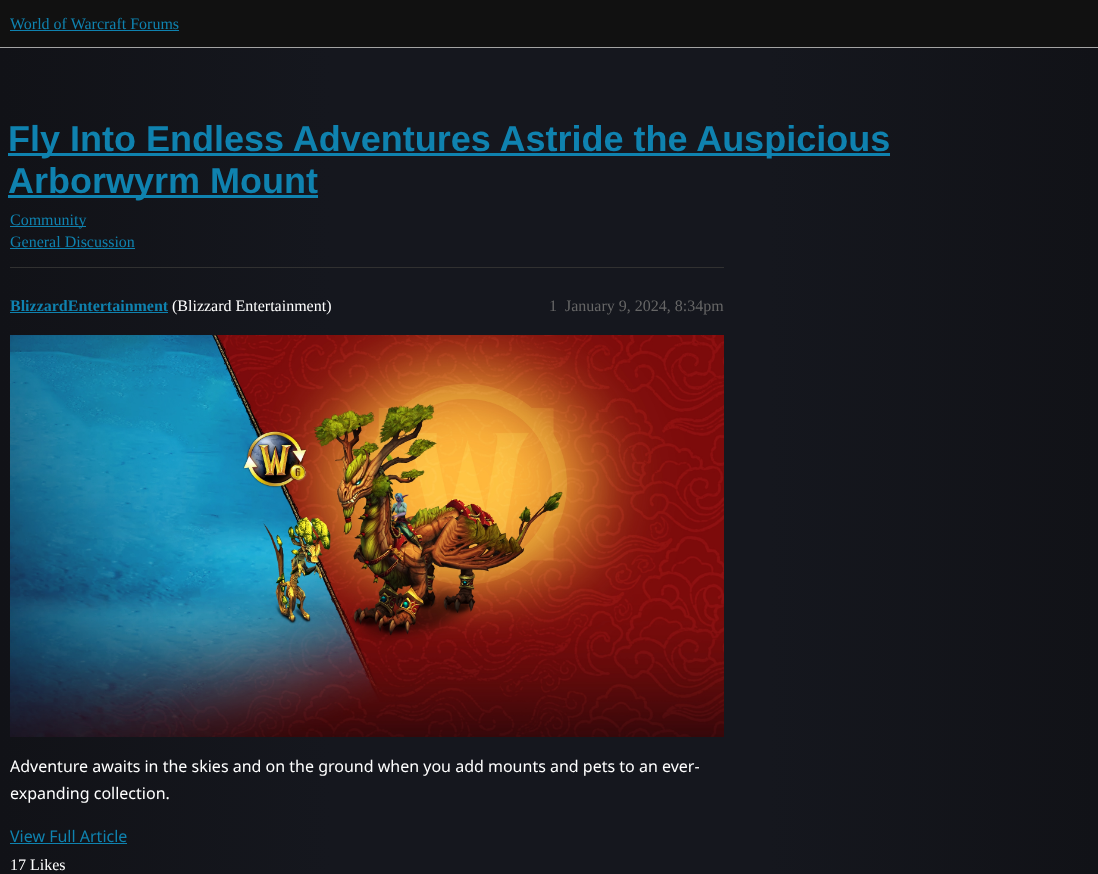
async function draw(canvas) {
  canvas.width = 1098;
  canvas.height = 874;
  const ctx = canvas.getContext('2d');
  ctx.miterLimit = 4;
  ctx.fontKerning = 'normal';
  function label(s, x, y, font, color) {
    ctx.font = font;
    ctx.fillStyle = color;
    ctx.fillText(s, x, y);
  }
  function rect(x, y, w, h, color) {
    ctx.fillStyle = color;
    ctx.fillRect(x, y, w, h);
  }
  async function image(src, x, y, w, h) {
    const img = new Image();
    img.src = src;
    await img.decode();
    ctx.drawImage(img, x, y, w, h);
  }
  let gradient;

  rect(0, 0, 1098, 874, '#fff');
  gradient = ctx.createLinearGradient(0, 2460, 1098, 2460);
  gradient.addColorStop(0, '#111217');
  gradient.addColorStop(0.3, '#15171e');
  gradient.addColorStop(0.7, '#15171e');
  gradient.addColorStop(1, '#111217');
  ctx.fillStyle = gradient;
  ctx.fillRect(0, 48, 1098, 826);
  rect(0, 0, 1098, 47, '#111');
  rect(0, 47, 1098, 1, '#a4a4a4');
  label('World of Warcraft Forums', 10, 29, '16px Liberation Serif', '#0f82af');
  rect(10, 30, 169, 1, '#0f82af');
  rect(8, 153, 882, 3, '#0f82af');
  label('Fly Into Endless Adventures Astride the Auspicious', 8, 151, 'bold 36px Liberation Sans', '#0f82af');
  rect(8, 195, 310, 3, '#0f82af');
  label('Arborwyrm Mount', 8, 193, 'bold 36px Liberation Sans', '#0f82af');
  rect(10, 226, 76, 1, '#0f82af');
  label('Community', 10, 225, '16px Liberation Serif', '#0f82af');
  label('General Discussion', 10, 247, '16px Liberation Serif', '#0f82af');
  rect(10, 248, 125, 1, '#0f82af');
  rect(10, 267, 714, 1, '#313131');
  label('BlizzardEntertainment', 10, 311, 'bold 16px Liberation Serif', '#0f82af');
  rect(10, 312, 158, 1, '#0f82af');
  label('(Blizzard Entertainment)', 172, 311, '16px Liberation Serif', '#fff');
  label('1', 549, 311, '16px Liberation Serif', '#666');
  label('January 9, 2024, 8:34pm', 565, 311, '16px Liberation Serif', '#666');
  await image('assets/img1.png', 10, 335, 714, 402);
  label('Adventure awaits in the skies and on the ground when you add mounts and pets to an ever-', 10, 772, '16px Noto Sans', '#fff');
  label('expanding collection.', 10, 799, '16px Noto Sans', '#fff');
  label('View Full Article', 10, 842, '16px Noto Sans', '#0f82af');
  rect(10, 843, 117, 1, '#0f82af');
  label('17 Likes', 10, 870, '16px Liberation Serif', '#fff');
}

draw(document.querySelector('canvas'));
